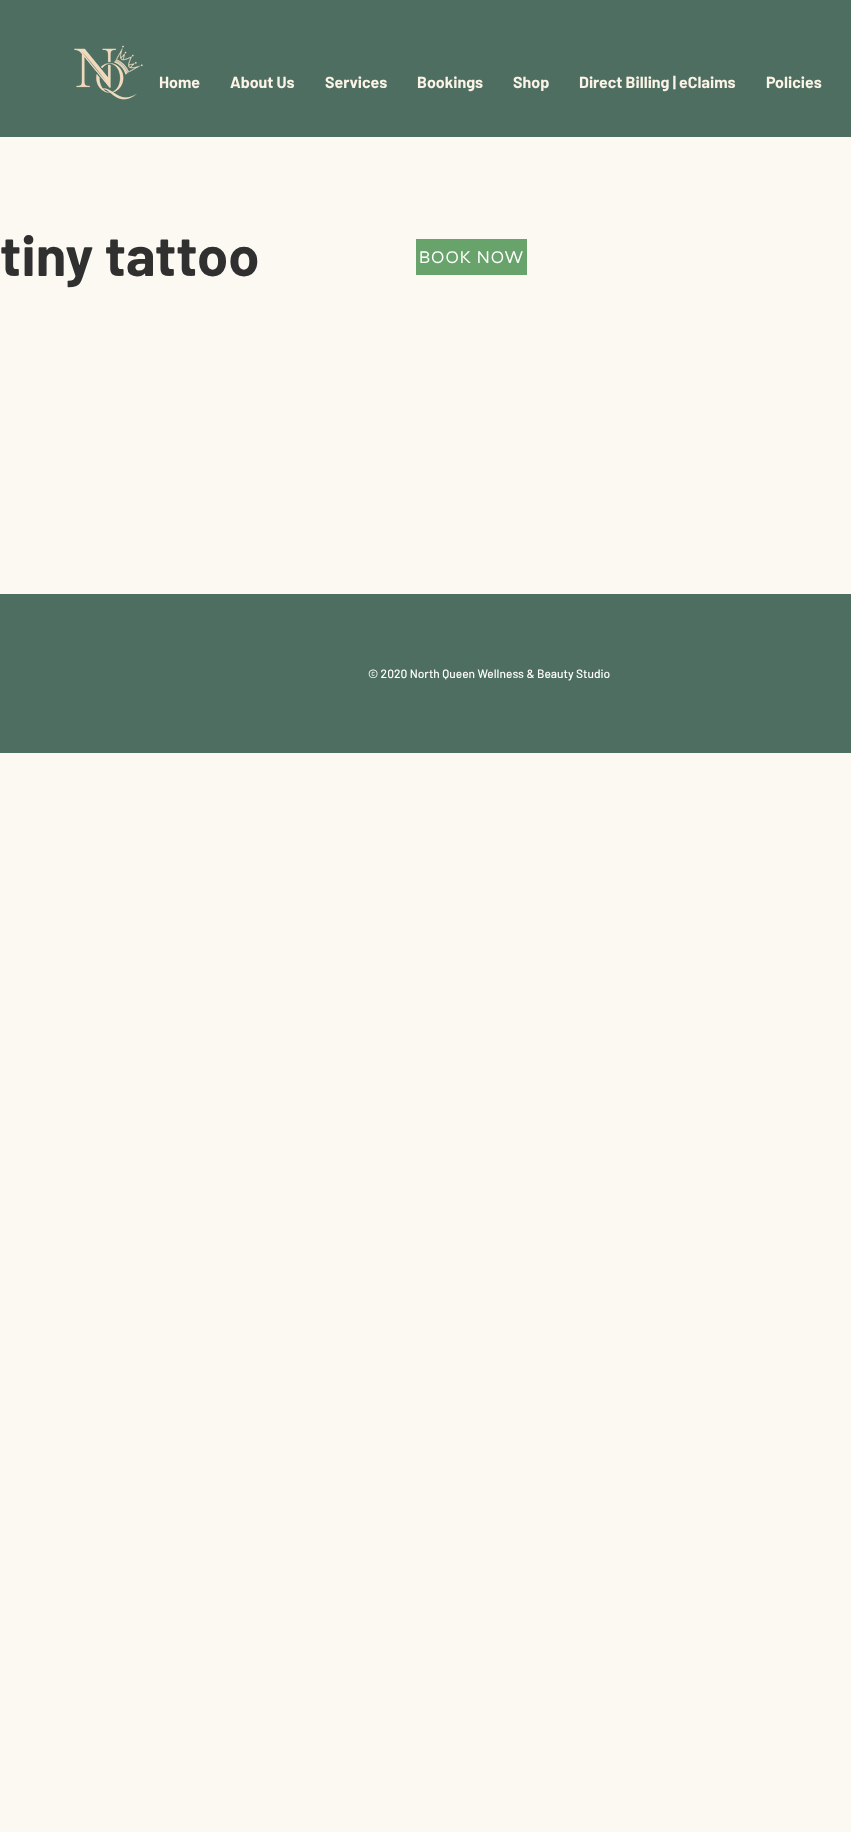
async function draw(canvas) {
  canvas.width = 851;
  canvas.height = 1832;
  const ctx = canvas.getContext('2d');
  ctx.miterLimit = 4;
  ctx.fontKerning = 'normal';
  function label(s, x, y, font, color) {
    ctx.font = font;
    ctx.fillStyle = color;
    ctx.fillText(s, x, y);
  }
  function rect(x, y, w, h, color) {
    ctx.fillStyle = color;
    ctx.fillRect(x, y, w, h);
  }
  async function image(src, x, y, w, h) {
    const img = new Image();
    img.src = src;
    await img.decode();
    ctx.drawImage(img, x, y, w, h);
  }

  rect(0, 0, 851, 1832, '#fcf9f2');
  rect(0, 0, 851, 137, '#4d6e60');
  await image('assets/img1.png', 74, 45, 69, 55);
  label('Home', 159, 88, 'bold 16px Barlow', '#faf3e6');
  label('About Us', 230, 88, 'bold 16px Barlow', '#faf3e6');
  label('Services', 325, 88, 'bold 16px Barlow', '#faf3e6');
  label('Bookings', 417, 88, 'bold 16px Barlow', '#faf3e6');
  label('Shop', 513, 88, 'bold 16px Barlow', '#faf3e6');
  label('Direct Billing | eClaims', 579, 88, 'bold 16px Barlow', '#faf3e6');
  label('Policies', 766, 88, 'bold 16px Barlow', '#faf3e6');
  label('tiny tattoo', 0, 276, 'bold 56px Barlow', '#303030');
  rect(416, 239, 111, 36, '#67a36a');
  ctx.letterSpacing = '1px';
  label('BOOK NOW', 419, 263, '18px Syne', '#fff');
  rect(0, 594, 851, 159, '#4d6e60');
  ctx.letterSpacing = '0px';
  label('© 2020 North Queen Wellness & Beauty Studio', 368, 678, '500 12px Barlow', '#fff');
}

draw(document.querySelector('canvas'));
